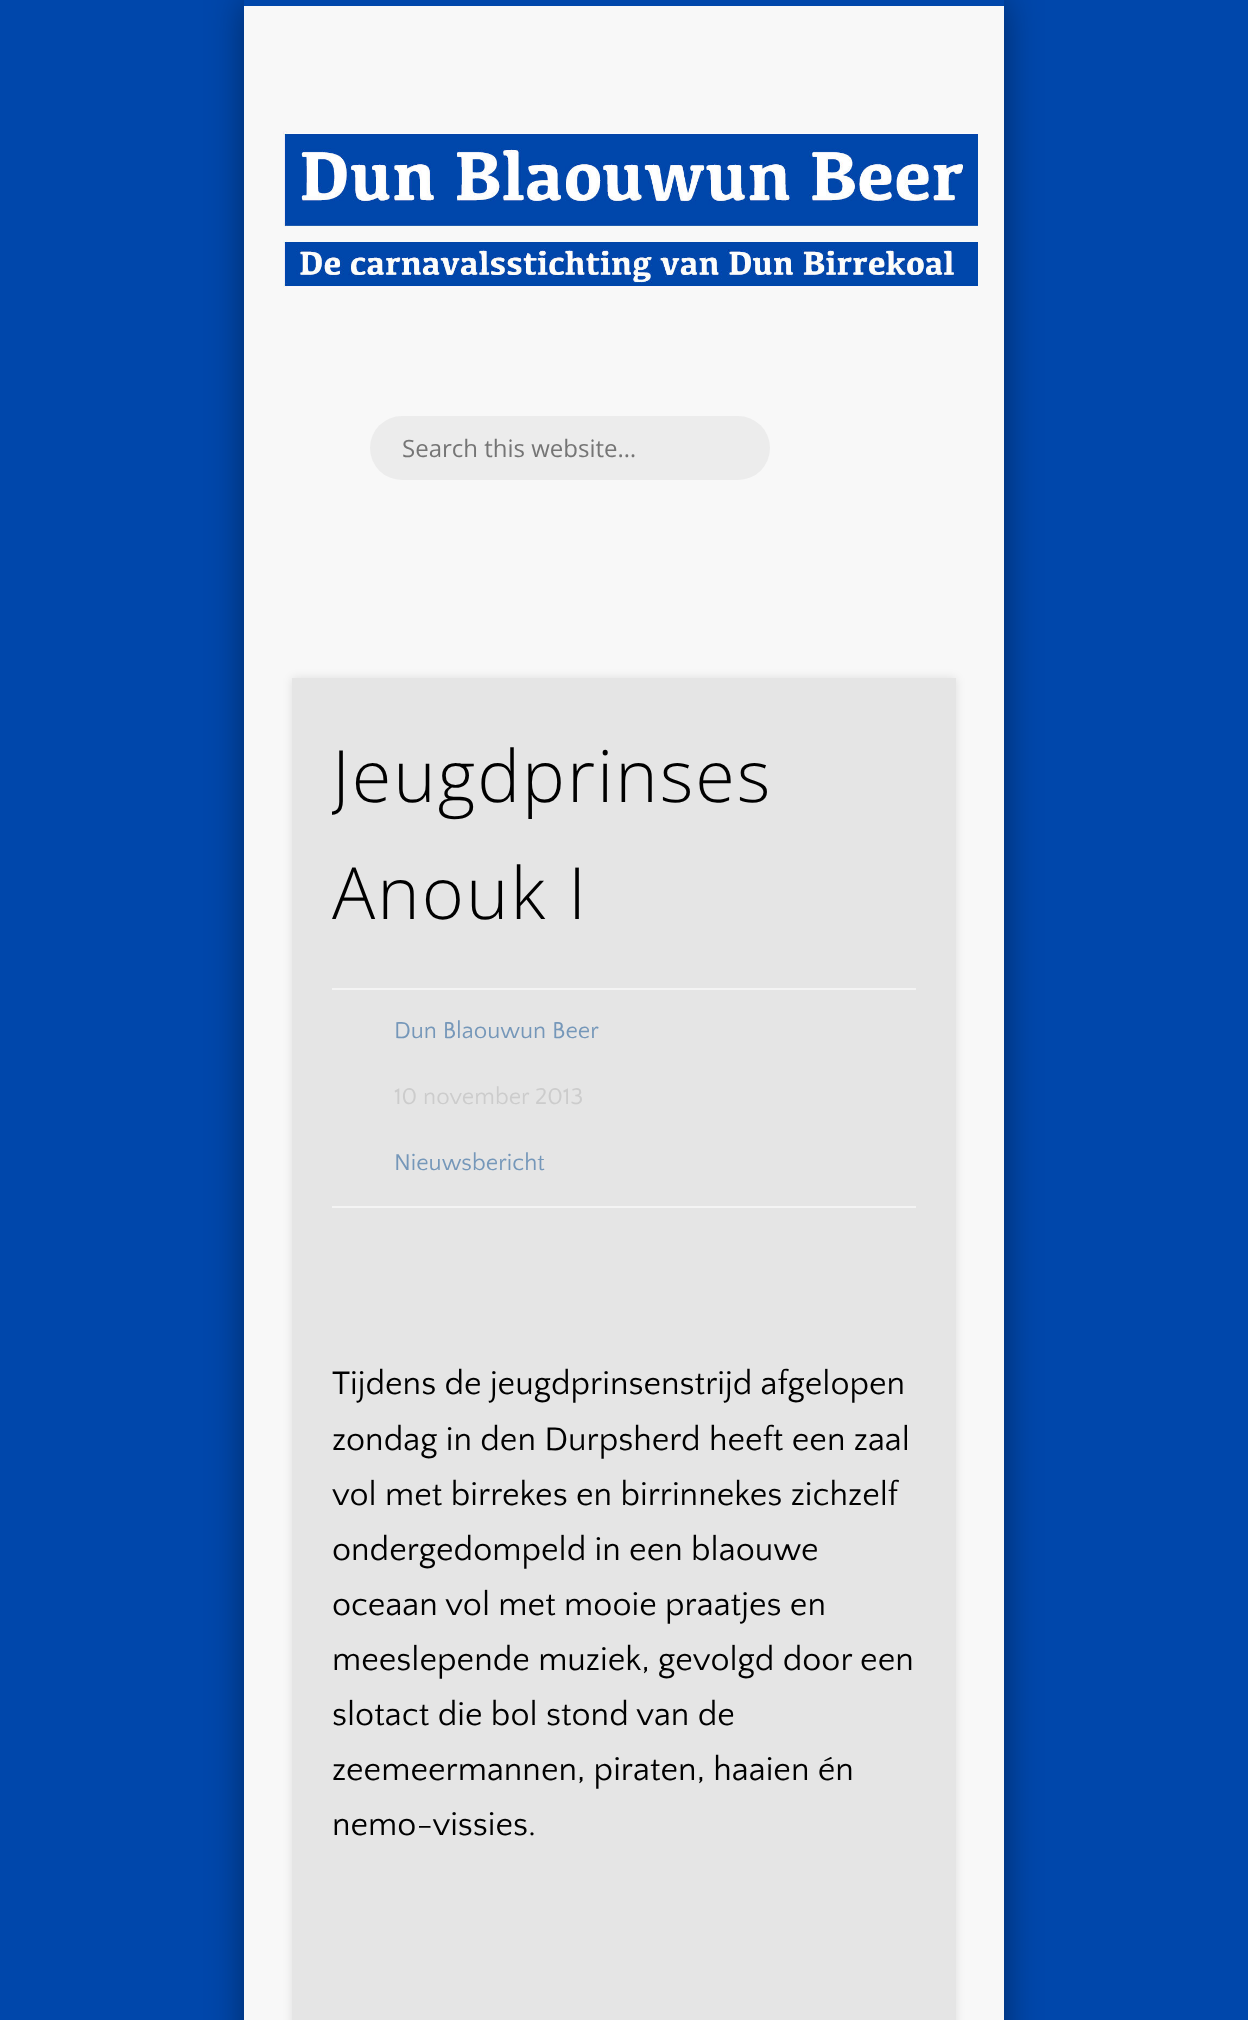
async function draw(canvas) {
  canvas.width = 1248;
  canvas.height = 2020;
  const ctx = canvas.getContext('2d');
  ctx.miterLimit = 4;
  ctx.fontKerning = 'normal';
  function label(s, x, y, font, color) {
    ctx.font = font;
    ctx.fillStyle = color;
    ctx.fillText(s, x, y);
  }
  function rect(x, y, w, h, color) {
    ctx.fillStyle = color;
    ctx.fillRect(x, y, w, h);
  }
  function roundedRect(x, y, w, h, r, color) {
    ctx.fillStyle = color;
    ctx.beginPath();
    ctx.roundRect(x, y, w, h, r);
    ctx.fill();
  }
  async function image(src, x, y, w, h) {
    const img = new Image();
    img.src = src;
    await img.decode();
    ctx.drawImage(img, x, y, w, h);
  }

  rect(0, 0, 1248, 2020, '#0047ab');
  ctx.fillStyle = '#00000066';
  ctx.filter = 'blur(18px)';
  ctx.beginPath();
  ctx.rect(244, 0, 760, 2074);
  ctx.fill();
  ctx.filter = 'none';
  rect(244, 6, 760, 2014, '#f8f8f8');
  rect(244, 0, 760, 6, '#0047ab');
  await image('assets/img1.png', 283, 131, 695, 157);
  roundedRect(370, 416, 400, 64, 32, '#ececec');
  label('Search this website…', 402, 457, '24px Open Sans', '#757575');
  ctx.fillStyle = '#0000001a';
  ctx.filter = 'blur(5px)';
  ctx.beginPath();
  ctx.rect(292, 678, 664, 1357);
  ctx.fill();
  ctx.filter = 'none';
  rect(292, 678, 664, 1342, '#e5e5e5');
  ctx.save();
  ctx.beginPath();
  ctx.rect(332, 718, 584, 234);
  ctx.clip();
  ctx.letterSpacing = '2px';
  label('Jeugdprinses', 332, 802, '300 72px Open Sans', '#000');
  ctx.restore();
  ctx.letterSpacing = '2px';
  label('Anouk I', 332, 919, '300 72px Open Sans', '#000');
  rect(332, 988, 584, 2, '#f4f4f4');
  rect(332, 1206, 584, 2, '#f4f4f4');
  ctx.letterSpacing = '0px';
  label('Dun Blaouwun Beer', 394, 1038, '24px Quattrocento Sans', '#7597b9');
  label('10 november 2013', 394, 1104, '24px Quattrocento Sans', '#ccc');
  label('Nieuwsbericht', 394, 1170, '24px Quattrocento Sans', '#7597b9');
  label('Tijdens de jeugdprinsenstrijd afgelopen', 332, 1394, '34px Quattrocento Sans', '#000');
  label('zondag in den Durpsherd heeft een zaal', 332, 1450, '34px Quattrocento Sans', '#000');
  label('vol met birrekes en birrinnekes zichzelf', 332, 1505, '34px Quattrocento Sans', '#000');
  label('ondergedompeld in een blaouwe', 332, 1560, '34px Quattrocento Sans', '#000');
  label('oceaan vol met mooie praatjes en', 332, 1615, '34px Quattrocento Sans', '#000');
  label('meeslepende muziek, gevolgd door een', 332, 1670, '34px Quattrocento Sans', '#000');
  label('slotact die bol stond van de', 332, 1725, '34px Quattrocento Sans', '#000');
  label('zeemeermannen, piraten, haaien én', 332, 1780, '34px Quattrocento Sans', '#000');
  label('nemo-vissies.', 332, 1835, '34px Quattrocento Sans', '#000');
}

draw(document.querySelector('canvas'));
